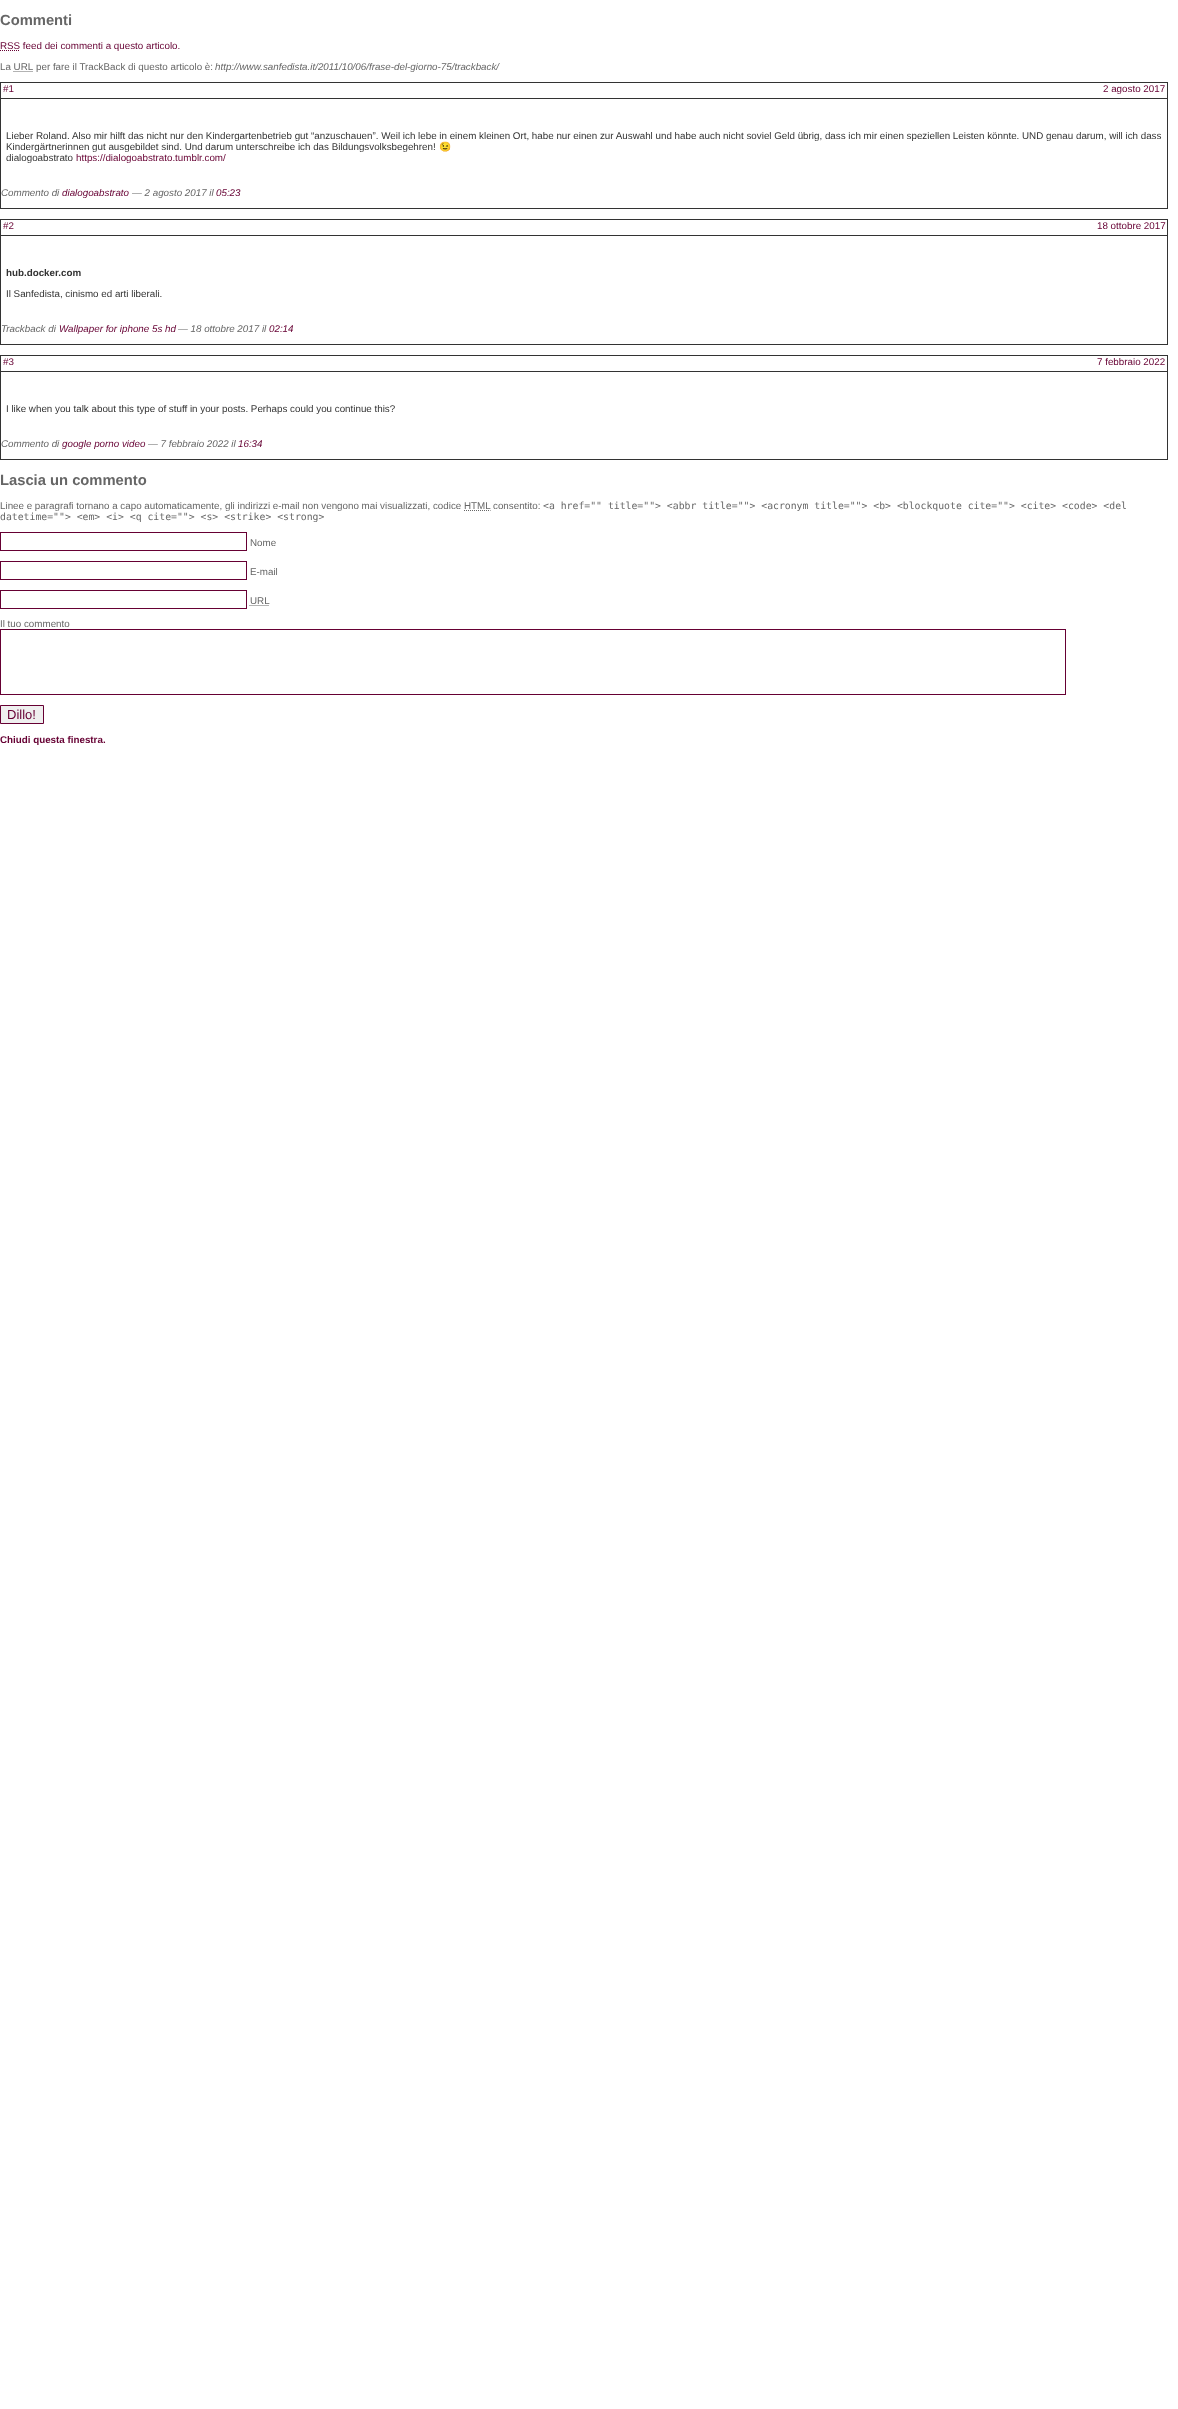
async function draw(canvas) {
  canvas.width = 1178;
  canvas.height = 2409;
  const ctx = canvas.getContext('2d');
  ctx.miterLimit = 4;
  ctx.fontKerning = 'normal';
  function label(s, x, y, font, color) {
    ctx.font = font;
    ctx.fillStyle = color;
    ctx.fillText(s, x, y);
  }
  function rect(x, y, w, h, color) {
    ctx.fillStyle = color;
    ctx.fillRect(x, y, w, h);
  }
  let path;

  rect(0, 0, 1178, 2409, '#fff');
  label('Commenti', 0, 25, 'bold 14.75px Liberation Sans', '#666');
  path = new Path2D('M0 50.5H20');
  ctx.strokeStyle = '#603';
  ctx.setLineDash([1, 1]);
  ctx.stroke(path);
  label('RSS feed dei commenti a questo articolo.', 0, 49, '9.8px Liberation Sans', '#603');
  label('La URL', 0, 70, '9.8px Liberation Sans', '#666');
  label('per fare il TrackBack di questo articolo è:', 36, 70, '9.8px Liberation Sans', '#666');
  label('http://www.sanfedista.it/2011/10/06/frase-del-giorno-75/trackback/', 215, 70, 'italic 9.8px Liberation Sans', '#666');
  path = new Path2D('M13.5 71.5H33');
  ctx.strokeStyle = '#666';
  ctx.stroke(path);
  ctx.strokeStyle = '#333';
  ctx.setLineDash([]);
  ctx.strokeRect(0.5, 82.5, 1167, 126);
  rect(1, 98, 1166, 1, '#333');
  label('#1', 3, 92, '9.8px Liberation Sans', '#603');
  label('2 agosto 2017', 1103, 92, '9.8px Liberation Sans', '#603');
  label('Lieber Roland. Also mir hilft das nicht nur den Kindergartenbetrieb gut “anzuschauen”. Weil ich lebe in einem kleinen Ort, habe nur einen zur Auswahl und habe auch nicht soviel Geld übrig, dass ich mir einen speziellen Leisten könnte. UND genau darum, will ich dass', 6, 139, '9.8px Liberation Sans', '#333');
  label('Kindergärtnerinnen gut ausgebildet sind. Und darum unterschreibe ich das Bildungsvolksbegehren!', 6, 150, '9.8px Liberation Sans', '#333');
  label('😉', 439, 150, '9.8px Noto Color Emoji', '#333');
  label('dialogoabstrato', 6, 161, '9.8px Liberation Sans', '#333');
  label('https://dialogoabstrato.tumblr.com/', 76, 161, '9.8px Liberation Sans', '#603');
  label('Commento di', 1, 196, 'italic 9.8px Liberation Sans', '#666');
  label('dialogoabstrato', 62, 196, 'italic 9.8px Liberation Sans', '#603');
  label('— 2 agosto 2017 il', 132, 196, 'italic 9.8px Liberation Sans', '#666');
  label('05:23', 216, 196, 'italic 9.8px Liberation Sans', '#603');
  ctx.strokeRect(0.5, 219.5, 1167, 125);
  rect(1, 235, 1166, 1, '#333');
  label('#2', 3, 229, '9.8px Liberation Sans', '#603');
  label('18 ottobre 2017', 1097, 229, '9.8px Liberation Sans', '#603');
  label('hub.docker.com', 6, 276, 'bold 9.8px Liberation Sans', '#333');
  label('Il Sanfedista, cinismo ed arti liberali.', 6, 297, '9.8px Liberation Sans', '#333');
  label('Trackback di', 1, 332, 'italic 9.8px Liberation Sans', '#666');
  label('Wallpaper for iphone 5s hd', 59, 332, 'italic 9.8px Liberation Sans', '#603');
  label('— 18 ottobre 2017 il', 178, 332, 'italic 9.8px Liberation Sans', '#666');
  label('02:14', 269, 332, 'italic 9.8px Liberation Sans', '#603');
  ctx.strokeRect(0.5, 355.5, 1167, 104);
  rect(1, 371, 1166, 1, '#333');
  label('#3', 3, 365, '9.8px Liberation Sans', '#603');
  label('7 febbraio 2022', 1097, 365, '9.8px Liberation Sans', '#603');
  label('I like when you talk about this type of stuff in your posts. Perhaps could you continue this?', 6, 412, '9.8px Liberation Sans', '#333');
  label('Commento di', 1, 447, 'italic 9.8px Liberation Sans', '#666');
  label('google porno video', 62, 447, 'italic 9.8px Liberation Sans', '#603');
  label('— 7 febbraio 2022 il', 148, 447, 'italic 9.8px Liberation Sans', '#666');
  label('16:34', 238, 447, 'italic 9.8px Liberation Sans', '#603');
  label('Lascia un commento', 0, 485, 'bold 14.75px Liberation Sans', '#666');
  label('Linee e paragrafi tornano a capo automaticamente, gli indirizzi e-mail non vengono mai visualizzati, codice HTML', 0, 509, '9.8px Liberation Sans', '#666');
  label('consentito:', 493, 509, '9.8px Liberation Sans', '#666');
  label('<a href="" title=""> <abbr title=""> <acronym title=""> <b> <blockquote cite=""> <cite> <code> <del', 543, 509, '9.8px DejaVu Sans Mono', '#666');
  path = new Path2D('M464 510.5H490.5');
  ctx.strokeStyle = '#666';
  ctx.setLineDash([1, 1]);
  ctx.stroke(path);
  label('datetime=""> <em> <i> <q cite=""> <s> <strike> <strong>', 0, 520, '9.8px DejaVu Sans Mono', '#666');
  ctx.strokeStyle = '#603';
  ctx.setLineDash([]);
  ctx.strokeRect(0.5, 532.5, 246, 18);
  label('Nome', 250, 546, '9.8px Liberation Sans', '#666');
  ctx.strokeRect(0.5, 561.5, 246, 18);
  label('E-mail', 250, 575, '9.8px Liberation Sans', '#666');
  ctx.strokeRect(0.5, 590.5, 246, 18);
  label('URL', 250, 604, '9.8px Liberation Sans', '#666');
  path = new Path2D('M249.5 605.5H269.5');
  ctx.strokeStyle = '#666';
  ctx.setLineDash([1, 1]);
  ctx.stroke(path);
  label('Il tuo commento', 0, 627, '9.8px Liberation Sans', '#666');
  ctx.strokeStyle = '#603';
  ctx.setLineDash([]);
  ctx.strokeRect(0.5, 629.5, 1065, 65);
  ctx.fillStyle = '#efefef';
  ctx.beginPath();
  ctx.rect(0.5, 705.5, 43, 18);
  ctx.fill();
  ctx.stroke();
  label('Dillo!', 7, 719, '13px Liberation Sans', '#603');
  label('Chiudi questa finestra.', 0, 743, 'bold 9.8px Liberation Sans', '#603');
}

draw(document.querySelector('canvas'));
